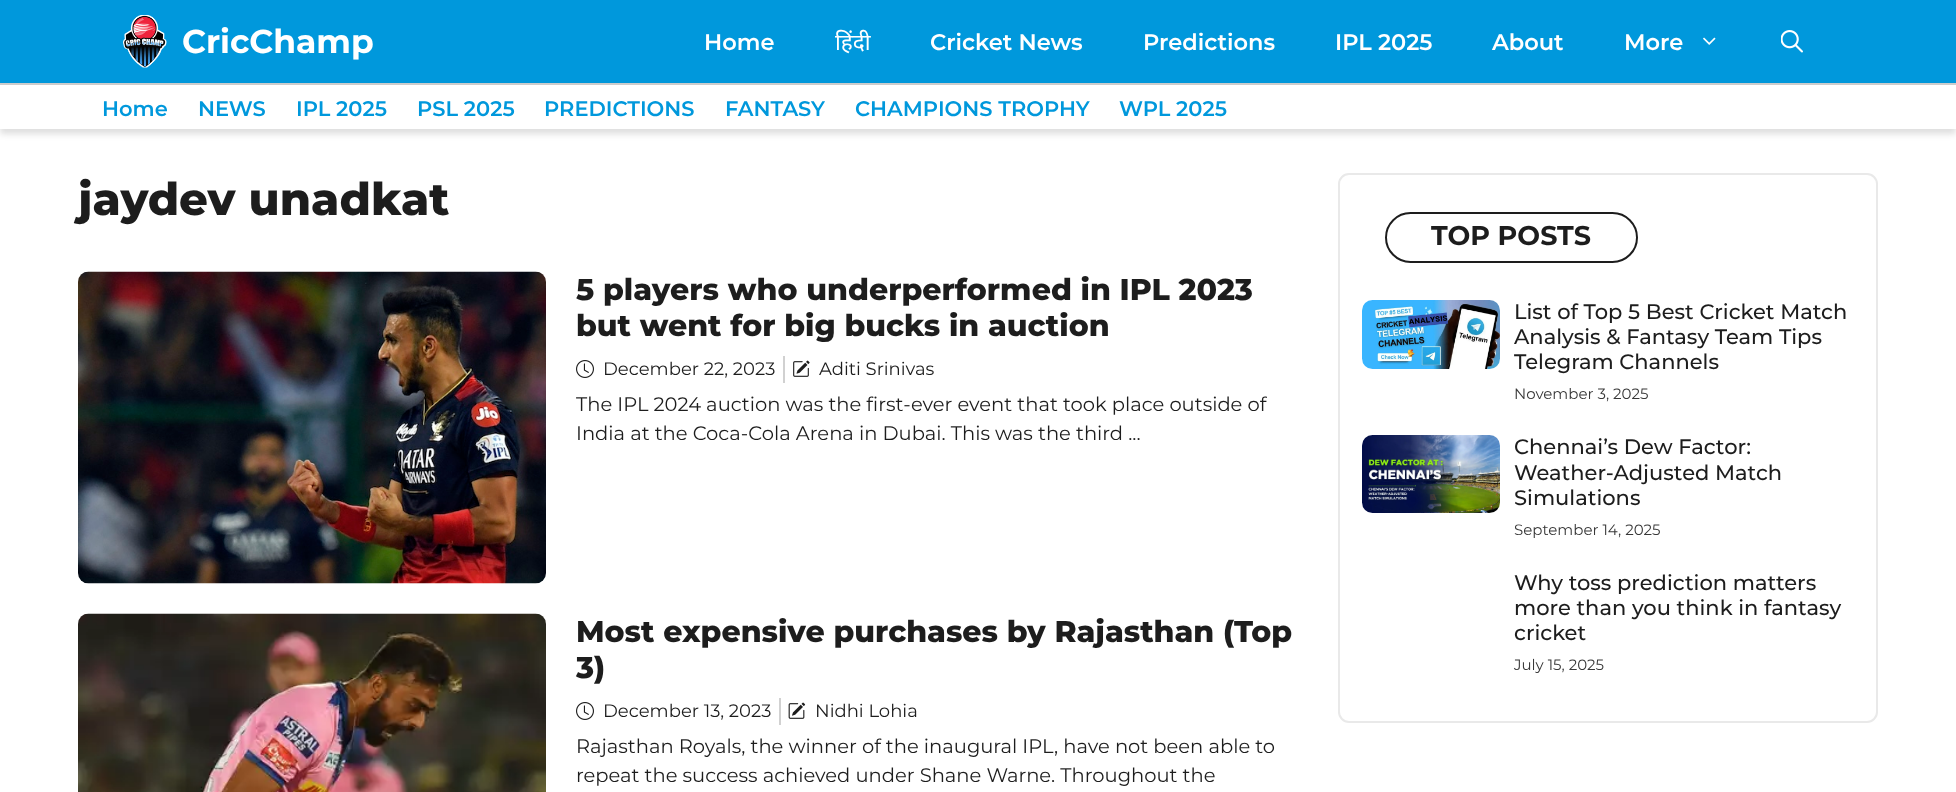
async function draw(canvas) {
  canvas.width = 1956;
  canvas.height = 792;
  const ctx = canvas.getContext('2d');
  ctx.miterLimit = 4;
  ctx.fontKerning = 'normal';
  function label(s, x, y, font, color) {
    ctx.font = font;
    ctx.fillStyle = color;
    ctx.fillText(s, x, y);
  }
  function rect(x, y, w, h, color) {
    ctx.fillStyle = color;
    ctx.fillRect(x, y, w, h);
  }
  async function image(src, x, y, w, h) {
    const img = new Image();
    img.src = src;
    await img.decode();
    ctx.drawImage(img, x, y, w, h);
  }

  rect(0, 0, 1956, 792, '#fff');
  rect(0, 0, 1956, 83, '#0098dc');
  await image('assets/img1.png', 123, 15, 44, 53);
  label('CricChamp', 182, 53, '100 33px "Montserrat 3"', '#fff');
  label('Home', 704, 50, '100 22.5px "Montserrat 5"', '#fff');
  label('हिंदी', 835, 50, '22.5px Noto Sans', '#fff');
  label('Cricket News', 930, 50, '100 22.5px "Montserrat 5"', '#fff');
  label('Predictions', 1143, 50, '100 22.5px "Montserrat 5"', '#fff');
  label('IPL 2025', 1335, 50, '100 22.5px "Montserrat 5"', '#fff');
  label('About', 1492, 50, '100 22.5px "Montserrat 5"', '#fff');
  label('More', 1624, 50, '100 22.5px "Montserrat 5"', '#fff');
  await image('assets/img2.png', 1703, 37, 13, 8);
  await image('assets/img3.png', 1781, 30, 22, 23);
  ctx.fillStyle = '#00000021';
  ctx.filter = 'blur(3px)';
  ctx.beginPath();
  ctx.rect(0, 87, 1956, 47);
  ctx.fill();
  ctx.filter = 'none';
  rect(0, 85, 1956, 44, '#fff');
  rect(0, 83, 1956, 2, '#ccc');
  label('Home', 102, 116, '100 21px "Montserrat 5"', '#0098dc');
  label('NEWS', 198, 116, '100 21px "Montserrat 5"', '#0098dc');
  label('IPL 2025', 296, 116, '100 21px "Montserrat 5"', '#0098dc');
  label('PSL 2025', 417, 116, '100 21px "Montserrat 5"', '#0098dc');
  label('PREDICTIONS', 544, 116, '100 21px "Montserrat 5"', '#0098dc');
  label('FANTASY', 725, 116, '100 21px "Montserrat 5"', '#0098dc');
  label('CHAMPIONS TROPHY', 855, 116, '100 21px "Montserrat 5"', '#0098dc');
  label('WPL 2025', 1119, 116, '100 21px "Montserrat 5"', '#0098dc');
  label('jaydev unadkat', 78, 215, '100 45px Montserrat', '#1d1d1d');
  await image('assets/img4.png', 78, 271, 468, 313);
  label('5 players who underperformed in IPL 2023', 576, 300, '100 30px Montserrat', '#1d1d1d');
  label('but went for big bucks in auction', 576, 336, '100 30px Montserrat', '#1d1d1d');
  await image('assets/img5.png', 576, 360, 18, 18);
  label('December 22, 2023', 603, 375, '100 18px "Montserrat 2"', '#1d1d1d');
  rect(783, 356, 2, 27, '#d1d1d1');
  await image('assets/img6.png', 793, 360, 17, 17);
  label('Aditi Srinivas', 819, 375, '100 18px "Montserrat 2"', '#1d1d1d');
  label('The IPL 2024 auction was the first-ever event that took place outside of', 576, 411, '100 19.5px "Montserrat 2"', '#1d1d1d');
  label('India at the Coca-Cola Arena in Dubai. This was the third ...', 576, 440, '100 19.5px "Montserrat 2"', '#1d1d1d');
  await image('assets/img7.png', 78, 613, 468, 179);
  label('Most expensive purchases by Rajasthan (Top', 576, 642, '100 30px Montserrat', '#1d1d1d');
  label('3)', 576, 678, '100 30px Montserrat', '#1d1d1d');
  await image('assets/img5.png', 576, 702, 18, 18);
  label('December 13, 2023', 603, 717, '100 18px "Montserrat 2"', '#1d1d1d');
  rect(779, 698, 2, 27, '#d1d1d1');
  await image('assets/img8.png', 788, 702, 18, 17);
  label('Nidhi Lohia', 815, 717, '100 18px "Montserrat 2"', '#1d1d1d');
  label('Rajasthan Royals, the winner of the inaugural IPL, have not been able to', 576, 753, '100 19.5px "Montserrat 2"', '#1d1d1d');
  label('repeat the success achieved under Shane Warne. Throughout the', 576, 782, '100 19.5px "Montserrat 2"', '#1d1d1d');
  ctx.beginPath();
  ctx.roundRect(1339, 174, 538, 548, 10);
  ctx.strokeStyle = '#e9e9e9';
  ctx.lineWidth = 2;
  ctx.stroke();
  ctx.beginPath();
  ctx.roundRect(1386, 213, 251, 49, 24.5);
  ctx.strokeStyle = '#1d1d1d';
  ctx.stroke();
  label('TOP POSTS', 1431, 245, '100 27px "Montserrat 3"', '#1d1d1d');
  await image('assets/img9.png', 1362, 300, 138, 69);
  label('List of Top 5 Best Cricket Match', 1514, 319, '100 21px "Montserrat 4"', '#1d1d1d');
  label('Analysis & Fantasy Team Tips', 1514, 344, '100 21px "Montserrat 4"', '#1d1d1d');
  label('Telegram Channels', 1514, 369, '100 21px "Montserrat 4"', '#1d1d1d');
  label('November 3, 2025', 1514, 399, '100 15px "Montserrat 2"', '#383838');
  await image('assets/img10.png', 1362, 435, 138, 78);
  label('Chennai’s Dew Factor:', 1514, 454, '100 21px "Montserrat 4"', '#1d1d1d');
  label('Weather-Adjusted Match', 1514, 480, '100 21px "Montserrat 4"', '#1d1d1d');
  label('Simulations', 1514, 505, '100 21px "Montserrat 4"', '#1d1d1d');
  label('September 14, 2025', 1514, 535, '100 15px "Montserrat 2"', '#383838');
  label('Why toss prediction matters', 1514, 590, '100 21px "Montserrat 4"', '#1d1d1d');
  label('more than you think in fantasy', 1514, 615, '100 21px "Montserrat 4"', '#1d1d1d');
  label('cricket', 1514, 640, '100 21px "Montserrat 4"', '#1d1d1d');
  label('July 15, 2025', 1514, 670, '100 15px "Montserrat 2"', '#383838');
}

draw(document.querySelector('canvas'));
